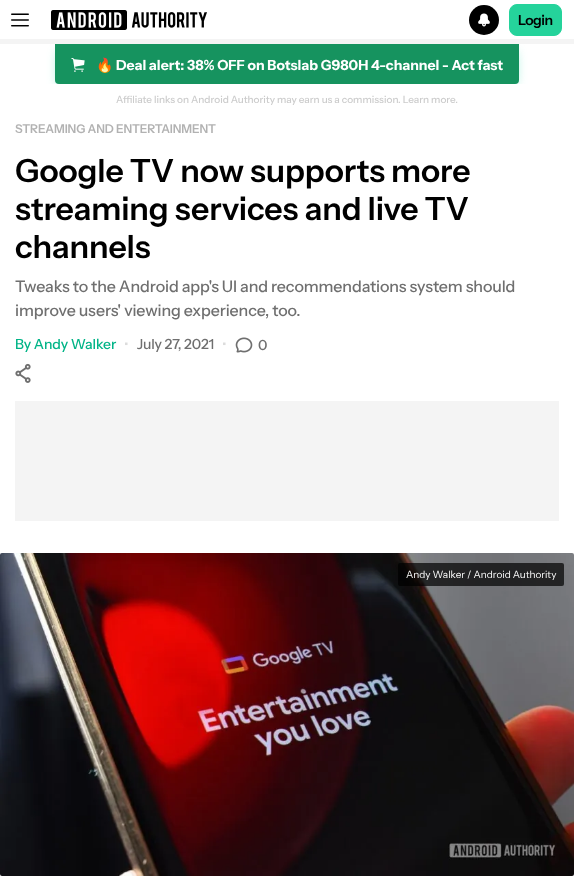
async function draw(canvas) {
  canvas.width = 574;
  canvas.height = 886;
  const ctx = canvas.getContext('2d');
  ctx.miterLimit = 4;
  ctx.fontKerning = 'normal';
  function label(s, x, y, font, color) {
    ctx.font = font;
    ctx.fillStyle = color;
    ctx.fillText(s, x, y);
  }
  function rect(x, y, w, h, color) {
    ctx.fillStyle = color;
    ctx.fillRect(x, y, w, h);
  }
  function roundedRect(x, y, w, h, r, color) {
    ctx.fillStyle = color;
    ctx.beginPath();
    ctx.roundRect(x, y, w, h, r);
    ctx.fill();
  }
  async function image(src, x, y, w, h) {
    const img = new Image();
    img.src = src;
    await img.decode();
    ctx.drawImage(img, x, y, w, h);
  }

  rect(0, 0, 574, 886, '#fff');
  await image('assets/img1.png', 11, 13, 18, 14);
  await image('assets/img2.png', 51, 10, 156, 20);
  ctx.save();
  ctx.beginPath();
  ctx.rect(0, 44, 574, 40);
  ctx.clip();
  ctx.fillStyle = '#00d49f80';
  ctx.filter = 'blur(6px)';
  ctx.beginPath();
  ctx.rect(59, 52, 456, 32);
  ctx.fill();
  ctx.filter = 'none';
  ctx.restore();
  ctx.fillStyle = '#000';
  ctx.beginPath();
  ctx.arc(484, 20, 15, 0, 2 * Math.PI);
  ctx.fill();
  await image('assets/img3.png', 478, 13, 12, 14);
  ctx.fillStyle = '#25d39b';
  ctx.beginPath();
  ctx.roundRect(509.5, 4.5, 52, 31, 7.5);
  ctx.fill();
  ctx.strokeStyle = '#25d39b';
  ctx.stroke();
  ctx.letterSpacing = '-0.5px';
  label('Login', 518, 25, '600 14px Instrument Sans', '#000');
  rect(0, 39, 574, 5, '#f4f4f4');
  ctx.fillStyle = '#16935f';
  ctx.beginPath();
  ctx.roundRect(55, 44, 464, 40, [0, 0, 4, 4]);
  ctx.fill();
  await image('assets/img4.png', 71, 58, 14, 14);
  ctx.letterSpacing = '0px';
  label('🔥', 96, 70, 'bold 14px Noto Color Emoji', '#fff');
  label('Deal alert: 38% OFF on Botslab G980H 4-channel - Act fast', 116, 70, 'bold 14px Instrument Sans', '#fff');
  label('Affiliate links on Android Authority may earn us a commission. Learn more.', 116, 103, '500 10px Instrument Sans', '#ccc');
  ctx.letterSpacing = '-0.1px';
  label('STREAMING AND ENTERTAINMENT', 15, 133, '600 12px Instrument Sans', '#b2b2b2');
  label('Google TV now supports more', 15, 182, '600 32px Instrument Sans', '#000');
  label('streaming services and live TV', 15, 220, '600 32px Instrument Sans', '#000');
  label('channels', 15, 258, '600 32px Instrument Sans', '#000');
  label('Tweaks to the Android app\'s UI and recommendations system should', 15, 292, '500 16px Instrument Sans', '#6f6f6f');
  label('improve users\' viewing experience, too.', 15, 316, '500 16px Instrument Sans', '#6f6f6f');
  label('By Andy Walker', 15, 349, '500 14px Instrument Sans', '#00b487');
  label('•', 124, 349, '500 14px Instrument Sans', '#dcdcdc');
  label('July 27, 2021', 137, 349, '500 14px Instrument Sans', '#6f6f6f');
  label('•', 222, 349, '500 14px Instrument Sans', '#dcdcdc');
  await image('assets/img5.png', 235, 337, 18, 16);
  label('0', 258, 350, '500 14px Instrument Sans', '#6f6f6f');
  await image('assets/img6.png', 15, 363, 16, 20);
  rect(15, 401, 544, 120, '#f4f4f4');
  await image('assets/img7.png', 0, 553, 574, 323);
  roundedRect(398, 563, 166, 23, 2, '#000000b3');
  ctx.letterSpacing = '0px';
  label('Andy Walker / Android Authority', 406, 578, '10px Instrument Sans', '#fff');
}

draw(document.querySelector('canvas'));
